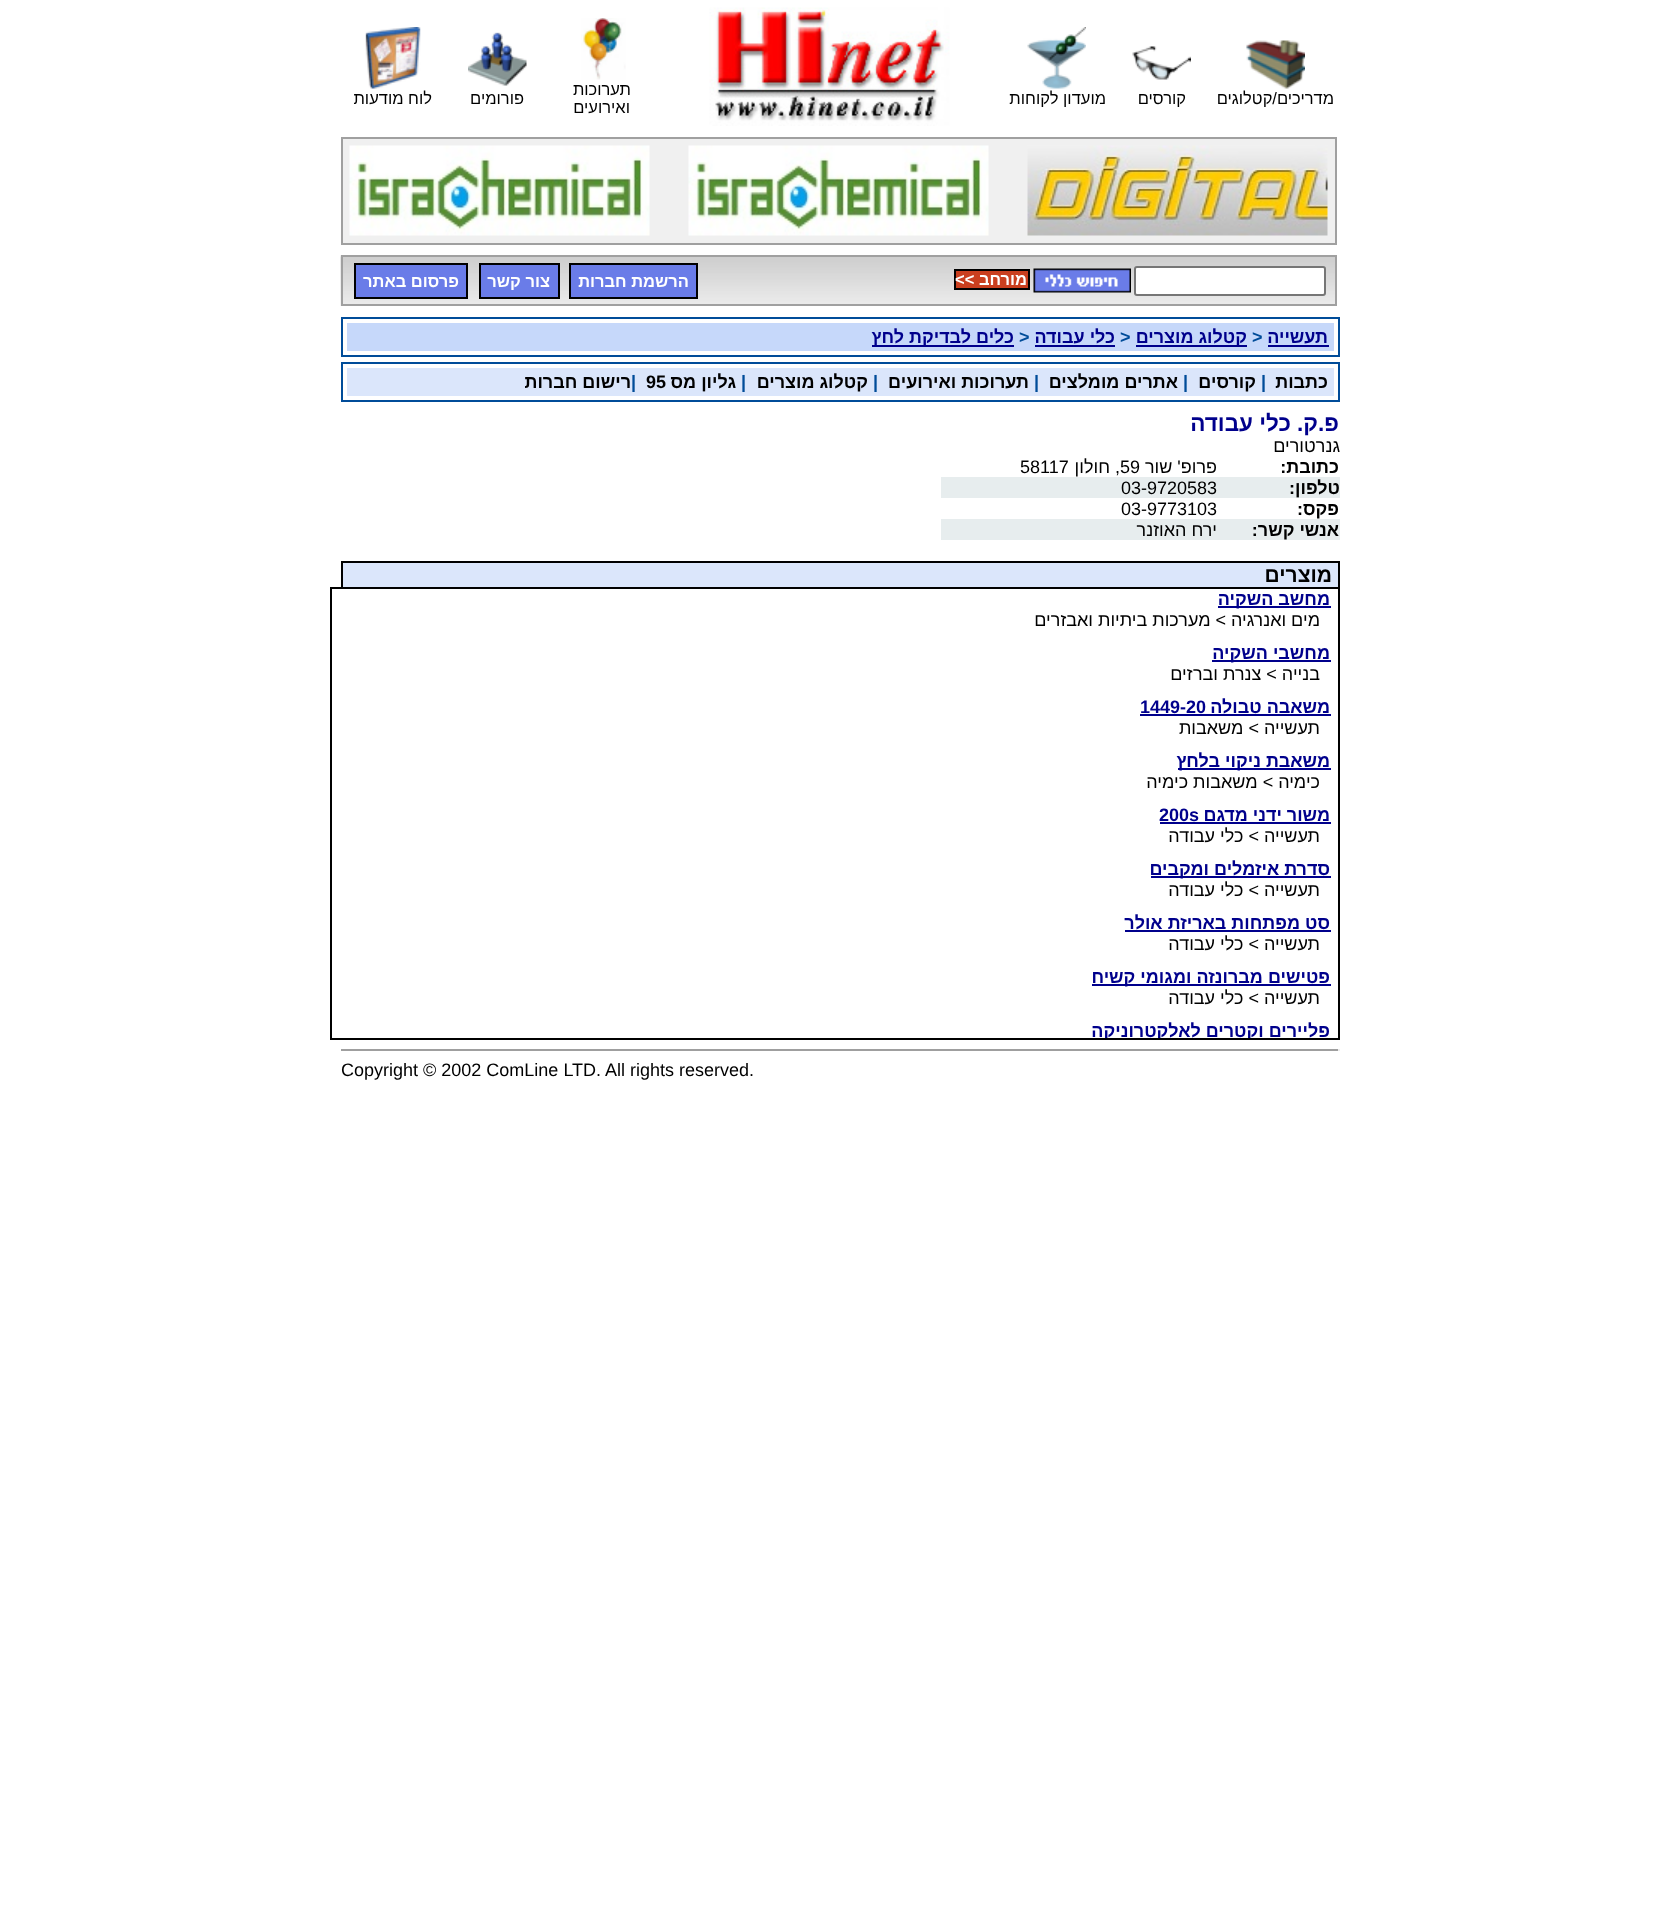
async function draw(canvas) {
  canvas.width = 1679;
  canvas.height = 1906;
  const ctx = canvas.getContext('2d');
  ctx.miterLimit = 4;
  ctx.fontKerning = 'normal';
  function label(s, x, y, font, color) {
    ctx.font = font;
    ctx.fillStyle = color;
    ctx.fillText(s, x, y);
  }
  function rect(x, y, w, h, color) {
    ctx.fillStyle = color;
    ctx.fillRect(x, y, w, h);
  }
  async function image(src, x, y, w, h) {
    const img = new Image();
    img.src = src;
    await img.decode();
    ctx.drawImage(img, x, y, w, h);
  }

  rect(0, 0, 1679, 1906, '#fff');
  await image('assets/img1.png', 1246, 40, 59, 49);
  ctx.direction = 'rtl';
  label('מדריכים/קטלוגים', 1334, 104, '16.5px Liberation Sans', '#000');
  await image('assets/img2.png', 1132, 46, 59, 34);
  label('קורסים', 1186, 104, '16.5px Liberation Sans', '#000');
  await image('assets/img3.png', 1027, 27, 59, 62);
  label('מועדון לקוחות', 1106, 104, '16.5px Liberation Sans', '#000');
  await image('assets/img4.png', 709, 7, 241, 119);
  await image('assets/img5.png', 581, 18, 45, 62);
  label('תערוכות', 631, 95, '16.5px Liberation Sans', '#000');
  label('ואירועים', 630, 113, '16.5px Liberation Sans', '#000');
  await image('assets/img6.png', 468, 32, 59, 54);
  label('פורומים', 524, 104, '16.5px Liberation Sans', '#000');
  await image('assets/img7.png', 365, 27, 56, 62);
  label('לוח מודעות', 432, 104, '16.5px Liberation Sans', '#000');
  ctx.fillStyle = '#f0f0f0';
  ctx.beginPath();
  ctx.rect(342, 138, 994, 106);
  ctx.fill();
  ctx.strokeStyle = '#a0a0a0';
  ctx.lineWidth = 2;
  ctx.stroke();
  await image('assets/img8.png', 1027, 145, 301, 91);
  await image('assets/img9.png', 688, 145, 301, 91);
  await image('assets/img10.png', 349, 145, 301, 91);
  await image('assets/img11.png', 340, 255, 995, 51);
  ctx.strokeRect(342, 256, 994, 49);
  ctx.fillStyle = '#fff';
  ctx.beginPath();
  ctx.roundRect(1135, 267, 190, 28, 2);
  ctx.fill();
  ctx.strokeStyle = '#767676';
  ctx.stroke();
  await image('assets/img12.png', 1033, 268, 98, 25);
  rect(956, 271, 72, 17, '#ca3f1f');
  label('מורחב', 1027, 285, 'bold 16.5px Liberation Sans', '#fff');
  rect(954, 269, 75, 2, '#000');
  rect(1028, 269, 2, 21, '#000');
  rect(980, 288, 49, 2, '#000');
  rect(954, 288, 26, 2, '#000');
  rect(954, 269, 2, 21, '#000');
  ctx.direction = 'ltr';
  label('<<', 955, 285, 'bold 16.5px Liberation Sans', '#fff');
  ctx.fillStyle = '#6a7ce8';
  ctx.beginPath();
  ctx.rect(570, 264, 127, 34);
  ctx.fill();
  ctx.strokeStyle = '#000';
  ctx.stroke();
  ctx.direction = 'rtl';
  label('הרשמת חברות', 689, 287, 'bold 16.5px Liberation Sans', '#fff');
  ctx.fillStyle = '#6a7ce8';
  ctx.beginPath();
  ctx.rect(480, 264, 79, 34);
  ctx.fill();
  ctx.stroke();
  label('צור קשר', 550, 287, 'bold 16.5px Liberation Sans', '#fff');
  ctx.fillStyle = '#6a7ce8';
  ctx.beginPath();
  ctx.rect(355, 264, 112, 34);
  ctx.fill();
  ctx.stroke();
  label('פרסום באתר', 459, 287, 'bold 16.5px Liberation Sans', '#fff');
  ctx.strokeStyle = '#004c99';
  ctx.strokeRect(342, 318, 997, 38);
  rect(347, 323, 987, 28, '#c6d8fa');
  label('תעשייה', 1328, 343, 'bold 18px Liberation Sans', '#00008c');
  rect(1268, 345, 61, 2, '#00008c');
  ctx.direction = 'ltr';
  label('>', 1252, 343, 'bold 18px Liberation Sans', '#004c99');
  rect(1136, 345, 111, 2, '#00008c');
  ctx.direction = 'rtl';
  label('קטלוג מוצרים', 1247, 343, 'bold 18px Liberation Sans', '#00008c');
  ctx.direction = 'ltr';
  label('>', 1120, 343, 'bold 18px Liberation Sans', '#004c99');
  ctx.direction = 'rtl';
  label('כלי עבודה', 1115, 343, 'bold 18px Liberation Sans', '#00008c');
  rect(1035, 345, 80, 2, '#00008c');
  ctx.direction = 'ltr';
  label('>', 1019, 343, 'bold 18px Liberation Sans', '#004c99');
  rect(872, 345, 142, 2, '#00008c');
  ctx.direction = 'rtl';
  label('כלים לבדיקת לחץ', 1014, 343, 'bold 18px Liberation Sans', '#00008c');
  ctx.strokeRect(342, 363, 997, 38);
  rect(347, 368, 987, 28, '#dbe6fb');
  label('כתבות', 1328, 388, 'bold 18px Liberation Sans', '#000');
  ctx.direction = 'ltr';
  label('|', 1261, 388, 'bold 18px Liberation Sans', '#004c99');
  ctx.direction = 'rtl';
  label('קורסים', 1256, 388, 'bold 18px Liberation Sans', '#000');
  ctx.direction = 'ltr';
  label('|', 1183, 388, 'bold 18px Liberation Sans', '#004c99');
  ctx.direction = 'rtl';
  label('אתרים מומלצים', 1178, 388, 'bold 18px Liberation Sans', '#000');
  ctx.direction = 'ltr';
  label('|', 1034, 388, 'bold 18px Liberation Sans', '#004c99');
  ctx.direction = 'rtl';
  label('תערוכות ואירועים', 1029, 388, 'bold 18px Liberation Sans', '#000');
  ctx.direction = 'ltr';
  label('|', 873, 388, 'bold 18px Liberation Sans', '#004c99');
  ctx.direction = 'rtl';
  label('קטלוג מוצרים', 868, 388, 'bold 18px Liberation Sans', '#000');
  ctx.direction = 'ltr';
  label('|', 741, 388, 'bold 18px Liberation Sans', '#004c99');
  ctx.direction = 'rtl';
  label('גליון מס', 736, 388, 'bold 18px Liberation Sans', '#000');
  ctx.direction = 'ltr';
  label('95', 646, 388, 'bold 18px Liberation Sans', '#000');
  label('|', 631, 388, 'bold 18px Liberation Sans', '#004c99');
  ctx.direction = 'rtl';
  label('רישום חברות', 631, 388, 'bold 18px Liberation Sans', '#000');
  label('פ.ק. כלי עבודה', 1339, 431, 'bold 22.5px Liberation Sans', '#00008c');
  label('גנרטורים', 1340, 452, '18px Liberation Sans', '#000');
  label('כתובת:', 1339, 473, 'bold 18px Liberation Sans', '#000');
  label('פרופ\' שור', 1217, 473, '18px Liberation Sans', '#000');
  ctx.direction = 'ltr';
  label('59', 1120, 473, '18px Liberation Sans', '#000');
  ctx.direction = 'rtl';
  label(', חולון', 1120, 473, '18px Liberation Sans', '#000');
  ctx.direction = 'ltr';
  label('58117', 1020, 473, '18px Liberation Sans', '#000');
  rect(941, 477, 399, 21, '#e7edee');
  ctx.direction = 'rtl';
  label('טלפון:', 1340, 494, 'bold 18px Liberation Sans', '#000');
  ctx.direction = 'ltr';
  label('03-9720583', 1121, 494, '18px Liberation Sans', '#000');
  ctx.direction = 'rtl';
  label('פקס:', 1339, 515, 'bold 18px Liberation Sans', '#000');
  ctx.direction = 'ltr';
  label('03-9773103', 1121, 515, '18px Liberation Sans', '#000');
  rect(941, 519, 399, 21, '#e7edee');
  ctx.direction = 'rtl';
  label('אנשי קשר:', 1339, 536, 'bold 18px Liberation Sans', '#000');
  label('ירח האוזנר', 1217, 536, '18px Liberation Sans', '#000');
  rect(343, 563, 995, 24, '#dbe6fb');
  rect(341, 561, 999, 2, '#000');
  rect(1338, 561, 2, 26, '#000');
  rect(341, 561, 2, 26, '#000');
  label('מוצרים', 1332, 582, 'bold 21px Liberation Sans', '#000');
  ctx.strokeStyle = '#000';
  ctx.strokeRect(331, 588, 1008, 451);
  rect(1218, 606, 113, 2, '#00008c');
  label('מחשב השקיה', 1330, 605, 'bold 18px Liberation Sans', '#00008c');
  label('מים ואנרגיה > מערכות ביתיות ואבזרים', 1320, 626, '18px Liberation Sans', '#000');
  rect(1212, 660, 119, 2, '#00008c');
  label('מחשבי השקיה', 1330, 659, 'bold 18px Liberation Sans', '#00008c');
  label('בנייה > צנרת וברזים', 1320, 680, '18px Liberation Sans', '#000');
  label('משאבה טבולה', 1330, 713, 'bold 18px Liberation Sans', '#00008c');
  ctx.direction = 'ltr';
  label('1449-20', 1140, 713, 'bold 18px Liberation Sans', '#00008c');
  rect(1140, 714, 191, 2, '#00008c');
  ctx.direction = 'rtl';
  label('תעשייה > משאבות', 1320, 734, '18px Liberation Sans', '#000');
  rect(1178, 768, 153, 2, '#00008c');
  label('משאבת ניקוי בלחץ', 1330, 767, 'bold 18px Liberation Sans', '#00008c');
  label('כימיה > משאבות כימיה', 1320, 788, '18px Liberation Sans', '#000');
  label('משור ידני מדגם', 1330, 821, 'bold 18px Liberation Sans', '#00008c');
  rect(1160, 822, 171, 2, '#00008c');
  ctx.direction = 'ltr';
  label('200s', 1159, 821, 'bold 18px Liberation Sans', '#00008c');
  ctx.direction = 'rtl';
  label('תעשייה > כלי עבודה', 1320, 842, '18px Liberation Sans', '#000');
  rect(1151, 876, 180, 2, '#00008c');
  label('סדרת איזמלים ומקבים', 1330, 875, 'bold 18px Liberation Sans', '#00008c');
  label('תעשייה > כלי עבודה', 1320, 896, '18px Liberation Sans', '#000');
  label('סט מפתחות באריזת אולר', 1330, 929, 'bold 18px Liberation Sans', '#00008c');
  rect(1125, 930, 206, 2, '#00008c');
  label('תעשייה > כלי עבודה', 1320, 950, '18px Liberation Sans', '#000');
  rect(1092, 984, 239, 2, '#00008c');
  label('פטישים מברונזה ומגומי קשיח', 1330, 983, 'bold 18px Liberation Sans', '#00008c');
  label('תעשייה > כלי עבודה', 1320, 1004, '18px Liberation Sans', '#000');
  ctx.save();
  ctx.beginPath();
  ctx.rect(332, 588, 1006, 450);
  ctx.clip();
  label('פליירים וקטרים לאלקטרוניקה', 1330, 1037, 'bold 18px Liberation Sans', '#00008c');
  ctx.restore();
  rect(341, 1049, 999, 2, '#9f9f9f');
  rect(1338, 1049, 2, 2, '#eee');
  ctx.direction = 'ltr';
  label('Copyright © 2002 ComLine LTD. All rights reserved.', 341, 1076, '18px Liberation Sans', '#000');
}

draw(document.querySelector('canvas'));
